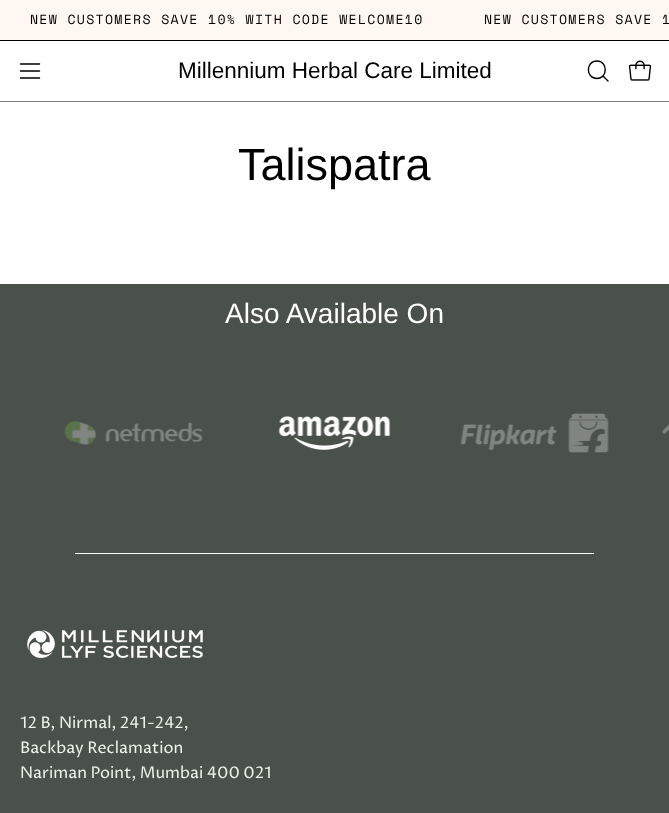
async function draw(canvas) {
  canvas.width = 669;
  canvas.height = 813;
  const ctx = canvas.getContext('2d');
  ctx.miterLimit = 4;
  ctx.fontKerning = 'normal';
  function label(s, x, y, font, color) {
    ctx.font = font;
    ctx.fillStyle = color;
    ctx.fillText(s, x, y);
  }
  function rect(x, y, w, h, color) {
    ctx.fillStyle = color;
    ctx.fillRect(x, y, w, h);
  }
  async function image(src, x, y, w, h) {
    const img = new Image();
    img.src = src;
    await img.decode();
    ctx.drawImage(img, x, y, w, h);
  }
  let path;

  rect(0, 0, 669, 813, '#fff');
  rect(0, 0, 669, 40, '#fff8f2');
  rect(0, 40, 669, 1, '#000');
  ctx.letterSpacing = '1.3px';
  label('NEW CUSTOMERS SAVE 10% WITH CODE WELCOME10', 30, 24, '13.2px Space Mono', '#000');
  label('NEW CUSTOMERS SAVE 1', 484, 24, '13.2px Space Mono', '#000');
  path = new Path2D('M20.5 71H39.5M20.5 64H39.5M20.5 78H39.5');
  ctx.strokeStyle = '#000';
  ctx.lineWidth = 1.5;
  ctx.lineCap = 'round';
  ctx.lineJoin = 'round';
  ctx.stroke(path);
  ctx.letterSpacing = '0px';
  label('Millennium Herbal Care Limited', 178, 78, '22.5px Liberation Sans', '#000');
  path = new Path2D('M597 78.5C608 78.5 608 61 597 61C585.5 61 585.5 78.5 597 78.5ZM603 76L608 81');
  ctx.lineWidth = 1.4;
  ctx.stroke(path);
  await image('assets/img1.png', 628, 60, 24, 21);
  rect(0, 101, 669, 1, '#808080');
  label('Talispatra', 238, 180, '45px Liberation Sans', '#000');
  rect(0, 284, 669, 529, '#4a514a');
  await image('assets/img2.png', 64, 421, 139, 24);
  await image('assets/img3.png', 278, 416, 113, 34);
  await image('assets/img4.png', 460, 413, 149, 40);
  await image('assets/img5.png', 662, 424, 7, 10);
  label('Also Available On', 225, 323, '28px Liberation Sans', '#fff');
  rect(75, 553, 519, 1, '#fff');
  await image('assets/img6.png', 27, 630, 176, 29);
  label('12 B, Nirmal, 241-242,', 20, 728, '16px Proza Libre', '#edf4ec');
  label('Backbay Reclamation', 20, 753, '16px Proza Libre', '#edf4ec');
  label('Nariman Point, Mumbai 400 021', 20, 778, '16px Proza Libre', '#edf4ec');
}

draw(document.querySelector('canvas'));
